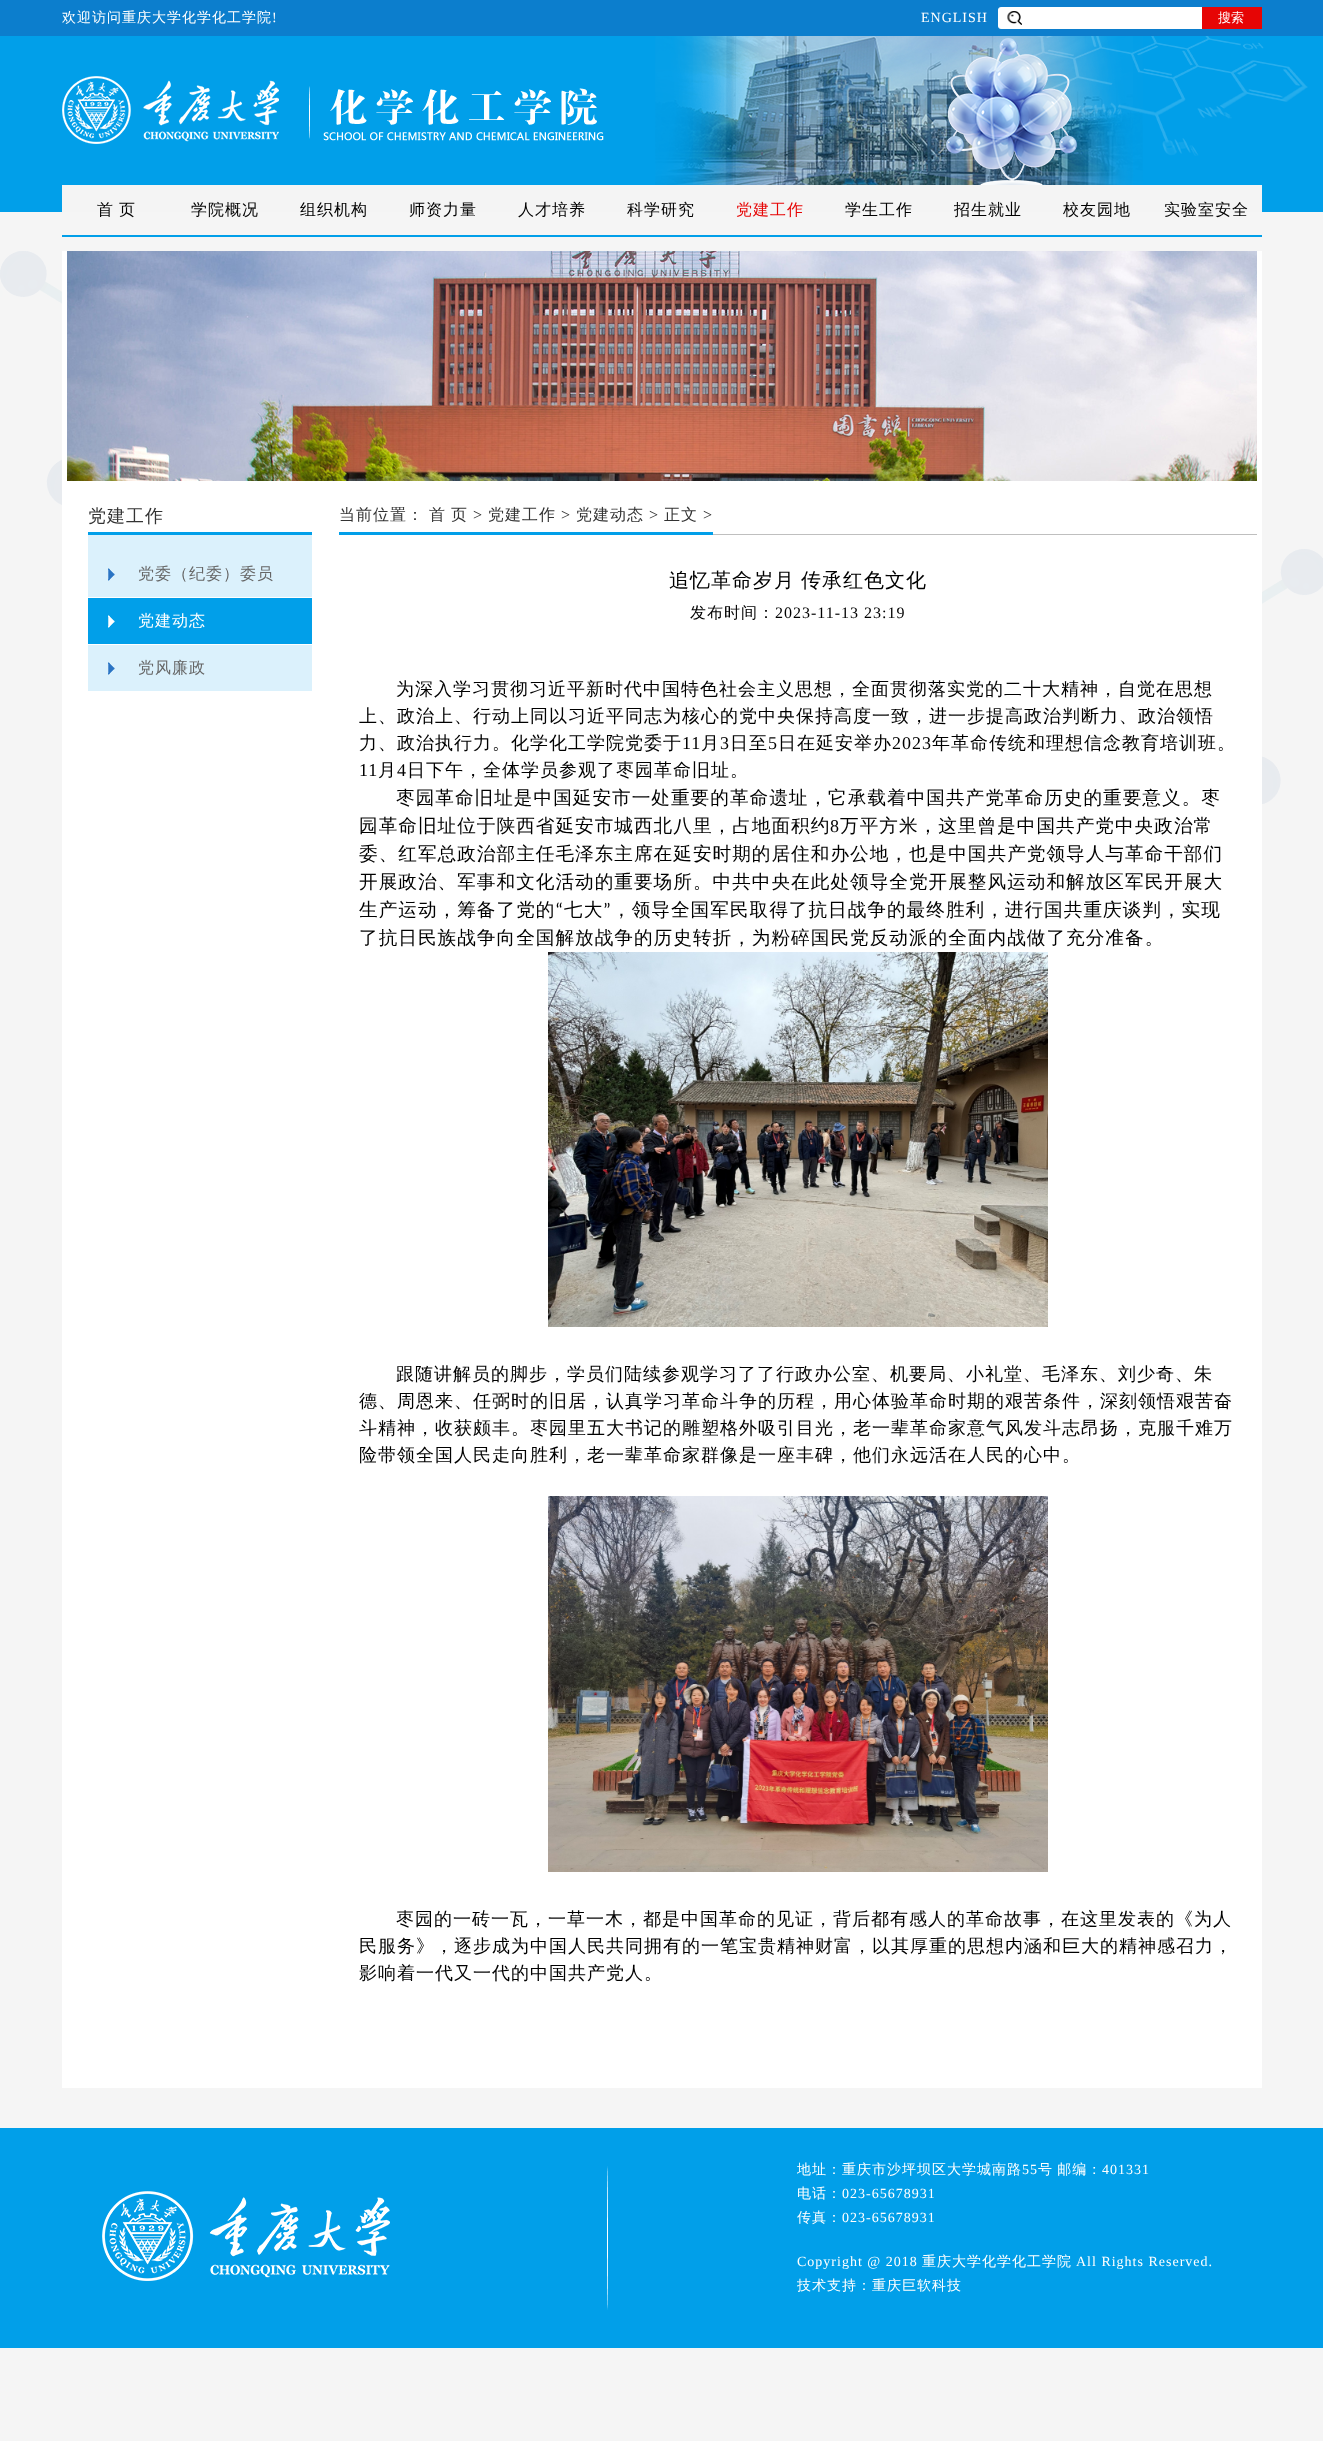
async function draw(canvas) {
  canvas.width = 1323;
  canvas.height = 2441;
  const ctx = canvas.getContext('2d');
  ctx.miterLimit = 4;
  ctx.fontKerning = 'normal';
  function label(s, x, y, font, color) {
    ctx.font = font;
    ctx.fillStyle = color;
    ctx.fillText(s, x, y);
  }
  function rect(x, y, w, h, color) {
    ctx.fillStyle = color;
    ctx.fillRect(x, y, w, h);
  }
  async function image(src, x, y, w, h) {
    const img = new Image();
    img.src = src;
    await img.decode();
    ctx.drawImage(img, x, y, w, h);
  }

  rect(0, 0, 1323, 2441, '#f5f5f5');
  rect(0, 0, 1323, 36, '#0c7ecd');
  ctx.letterSpacing = '1px';
  label('欢迎访问重庆大学化学化工学院', 62, 22, '500 14px WenQuanYi Zen Hei', '#fff');
  label('!', 272, 22, '14px Liberation Serif', '#fff');
  label('ENGLISH', 921, 22, '14px Liberation Serif', '#fff');
  rect(1022, 7, 180, 22, '#fff');
  await image('assets/img1.png', 998, 7, 24, 22);
  rect(1202, 7, 60, 22, '#e60505');
  ctx.letterSpacing = '0px';
  label('搜索', 1218, 22, '500 13px WenQuanYi Zen Hei', '#fff');
  rect(0, 36, 1323, 176, '#019fe9');
  await image('assets/img2.png', 62, 36, 1246, 174);
  rect(62, 185, 1200, 27, '#f4f4f4');
  rect(62, 235, 1200, 2, '#019fe9');
  ctx.letterSpacing = '1px';
  label('首', 97, 215, '500 16px WenQuanYi Zen Hei', '#000');
  label('页', 119, 215, '500 16px WenQuanYi Zen Hei', '#000');
  label('学院概况', 191, 215, '500 16px WenQuanYi Zen Hei', '#000');
  label('组织机构', 300, 215, '500 16px WenQuanYi Zen Hei', '#000');
  label('师资力量', 409, 215, '500 16px WenQuanYi Zen Hei', '#000');
  label('人才培养', 518, 215, '500 16px WenQuanYi Zen Hei', '#000');
  label('科学研究', 627, 215, '500 16px WenQuanYi Zen Hei', '#000');
  label('党建工作', 736, 215, '500 16px WenQuanYi Zen Hei', '#e60505');
  label('学生工作', 845, 215, '500 16px WenQuanYi Zen Hei', '#000');
  label('招生就业', 954, 215, '500 16px WenQuanYi Zen Hei', '#000');
  label('校友园地', 1063, 215, '500 16px WenQuanYi Zen Hei', '#000');
  label('实验室安全', 1164, 215, '500 16px WenQuanYi Zen Hei', '#000');
  await image('assets/img3.png', 0, 251, 62, 254);
  rect(62, 251, 1200, 1837, '#fff');
  await image('assets/img4.png', 67, 251, 1190, 230);
  rect(88, 532, 224, 3, '#019fe9');
  label('党建工作', 88, 522, '500 18px WenQuanYi Zen Hei', '#333');
  rect(88, 535, 224, 156, '#dbf1fc');
  rect(88, 597, 224, 1, '#fff');
  await image('assets/img5.png', 108, 568, 7, 13);
  label('党委（纪委）委员', 138, 579, '500 16px WenQuanYi Zen Hei', '#666');
  rect(88, 644, 224, 1, '#fff');
  rect(88, 598, 224, 46, '#019fe9');
  await image('assets/img6.png', 108, 615, 7, 13);
  label('党建动态', 138, 626, '500 16px WenQuanYi Zen Hei', '#fff');
  await image('assets/img5.png', 108, 662, 7, 13);
  label('党风廉政', 138, 673, '500 16px WenQuanYi Zen Hei', '#666');
  rect(713, 534, 544, 1, '#bfbfbf');
  rect(339, 532, 374, 3, '#019fe9');
  label('当前位置：', 339, 520, '500 16px WenQuanYi Zen Hei', '#333');
  label('首', 429, 520, '500 16px WenQuanYi Zen Hei', '#333');
  label('页', 451, 520, '500 16px WenQuanYi Zen Hei', '#333');
  label('>', 473, 520, '16px Liberation Serif', '#333');
  label('党建工作', 488, 520, '500 16px WenQuanYi Zen Hei', '#333');
  label('>', 561, 520, '16px Liberation Serif', '#333');
  label('党建动态', 576, 520, '500 16px WenQuanYi Zen Hei', '#333');
  label('>', 649, 520, '16px Liberation Serif', '#333');
  label('正文', 664, 520, '500 16px WenQuanYi Zen Hei', '#333');
  label('>', 703, 520, '16px Liberation Serif', '#333');
  ctx.wordSpacing = '-1px';
  label('追忆革命岁月 传承红色文化', 669, 587, '500 20px WenQuanYi Zen Hei', '#000');
  ctx.wordSpacing = '0px';
  label('发布时间：', 690, 618, '500 16px WenQuanYi Zen Hei', '#000');
  label('2023-11-13 23:19', 775, 618, '16px Liberation Serif', '#000');
  label('为深入学习贯彻习近平新时代中国特色社会主义思想，全面贯彻落实党的二十大精神，自觉在思想', 396, 695, '500 18px WenQuanYi Zen Hei', '#000');
  label('上、政治上、行动上同以习近平同志为核心的党中央保持高度一致，进一步提高政治判断力、政治领悟', 359, 722, '500 18px WenQuanYi Zen Hei', '#000');
  label('力、政治执行力。化学化工学院党委于', 359, 749, '500 18px WenQuanYi Zen Hei', '#000');
  label('11', 682, 749, '18px Liberation Serif', '#000');
  label('月', 701, 749, '500 18px WenQuanYi Zen Hei', '#000');
  label('3', 720, 749, '18px Liberation Serif', '#000');
  label('日至', 730, 749, '500 18px WenQuanYi Zen Hei', '#000');
  label('5', 768, 749, '18px Liberation Serif', '#000');
  label('日在延安举办', 778, 749, '500 18px WenQuanYi Zen Hei', '#000');
  label('2023', 892, 749, '18px Liberation Serif', '#000');
  label('年革命传统和理想信念教育培训班。', 932, 749, '500 18px WenQuanYi Zen Hei', '#000');
  label('11', 359, 776, '18px Liberation Serif', '#000');
  label('月', 378, 776, '500 18px WenQuanYi Zen Hei', '#000');
  label('4', 397, 776, '18px Liberation Serif', '#000');
  label('日下午，全体学员参观了枣园革命旧址。', 407, 776, '500 18px WenQuanYi Zen Hei', '#000');
  label('枣园革命旧址是中国延安市一处重要的革命遗址，它承载着中国共产党革命历史的重要意义。枣', 396, 804, '500 18.65px WenQuanYi Zen Hei', '#000');
  label('园革命旧址位于陕西省延安市城西北八里，占地面积约', 359, 832, '500 18.65px WenQuanYi Zen Hei', '#000');
  label('8', 830, 832, '18px Liberation Serif', '#000');
  label('万平方米，这里曾是中国共产党中央政治常', 840, 832, '500 18.65px WenQuanYi Zen Hei', '#000');
  label('委、红军总政治部主任毛泽东主席在延安时期的居住和办公地，也是中国共产党领', 359, 860, '500 18.65px WenQuanYi Zen Hei', '#000');
  label('导人与革命干部们', 1066, 860, '500 18.65px WenQuanYi Zen Hei', '#000');
  label('开展政治、军事和文化活动的重要场所。中共中央在此处领导全党开展整风运动和解放区军民开展大', 359, 888, '500 18.65px WenQuanYi Zen Hei', '#000');
  label('生产运动，筹备了党的', 359, 916, '500 18.65px WenQuanYi Zen Hei', '#000');
  label('“', 555, 916, '18.65px Carlito', '#000');
  label('七大', 564, 916, '500 18.65px WenQuanYi Zen Hei', '#000');
  label('”', 603, 916, '18.65px Carlito', '#000');
  label('，领导全国军民取得了抗日战争的最终胜利，进行国共重庆谈判，实现', 612, 916, '500 18.65px WenQuanYi Zen Hei', '#000');
  label('了抗日民族战争向全国解放战争的历史转折，为粉碎国民党反动派的全面内战做了充分准备。', 359, 944, '500 18.65px WenQuanYi Zen Hei', '#000');
  await image('assets/img7.png', 548, 952, 500, 375);
  label('跟随讲解员的脚步，学员们陆续参观学习了了行政办公室、机要局、小礼堂、毛泽东、刘少奇、朱', 396, 1380, '500 18px WenQuanYi Zen Hei', '#000');
  label('德、周恩来、任弼时的旧居，认真学习革命斗争的历程，用心体验革命时期的艰苦条件，深刻领悟艰苦奋', 359, 1407, '500 18px WenQuanYi Zen Hei', '#000');
  label('斗精神，收获颇丰。枣园里五大书记的雕塑格外吸引目光，老一辈革命家意气风发斗志昂扬，克服千难万', 359, 1434, '500 18px WenQuanYi Zen Hei', '#000');
  label('险带领全国人民走向胜利，老一辈革命家群像是一座丰碑，他们永远活在人民的心中。', 359, 1461, '500 18px WenQuanYi Zen Hei', '#000');
  await image('assets/img8.png', 548, 1496, 500, 376);
  label('枣园的一砖一瓦，一草一木，都是中国革命的见证，背后都有感人的革命故事，在这里发表的《为人', 396, 1925, '500 18px WenQuanYi Zen Hei', '#000');
  label('民服务》，逐步成为中国人民共同拥有的一笔宝贵精神财富，以其厚重的思想内涵和巨大的精神感召力，', 359, 1952, '500 18px WenQuanYi Zen Hei', '#000');
  label('影响着一代又一代的中国共产党人。', 359, 1979, '500 18px WenQuanYi Zen Hei', '#000');
  await image('assets/img9.png', 1262, 549, 61, 255);
  rect(0, 2128, 1323, 220, '#019fe9');
  await image('assets/img10.png', 607, 2166, 1, 144);
  await image('assets/img11.png', 102, 2191, 288, 90);
  label('地址：重庆市沙坪坝区大学城南路', 797, 2174, '500 14px WenQuanYi Zen Hei', '#fff');
  label('55', 1022, 2174, '14px Liberation Serif', '#fff');
  ctx.wordSpacing = '-1px';
  label('号 邮编：', 1038, 2174, '500 14px WenQuanYi Zen Hei', '#fff');
  ctx.wordSpacing = '0px';
  label('401331', 1102, 2174, '14px Liberation Serif', '#fff');
  label('电话：', 797, 2198, '500 14px WenQuanYi Zen Hei', '#fff');
  label('023-65678931', 842, 2198, '14px Liberation Serif', '#fff');
  label('传真：', 797, 2222, '500 14px WenQuanYi Zen Hei', '#fff');
  label('023-65678931', 842, 2222, '14px Liberation Serif', '#fff');
  label('Copyright @ 2018', 797, 2266, '14px Liberation Serif', '#fff');
  label('重庆大学化学化工学院', 922, 2266, '500 14px WenQuanYi Zen Hei', '#fff');
  label('All Rights Reserved.', 1076, 2266, '14px Liberation Serif', '#fff');
  label('技术支持：重庆巨软科技', 797, 2290, '500 14px WenQuanYi Zen Hei', '#fff');
}

draw(document.querySelector('canvas'));
